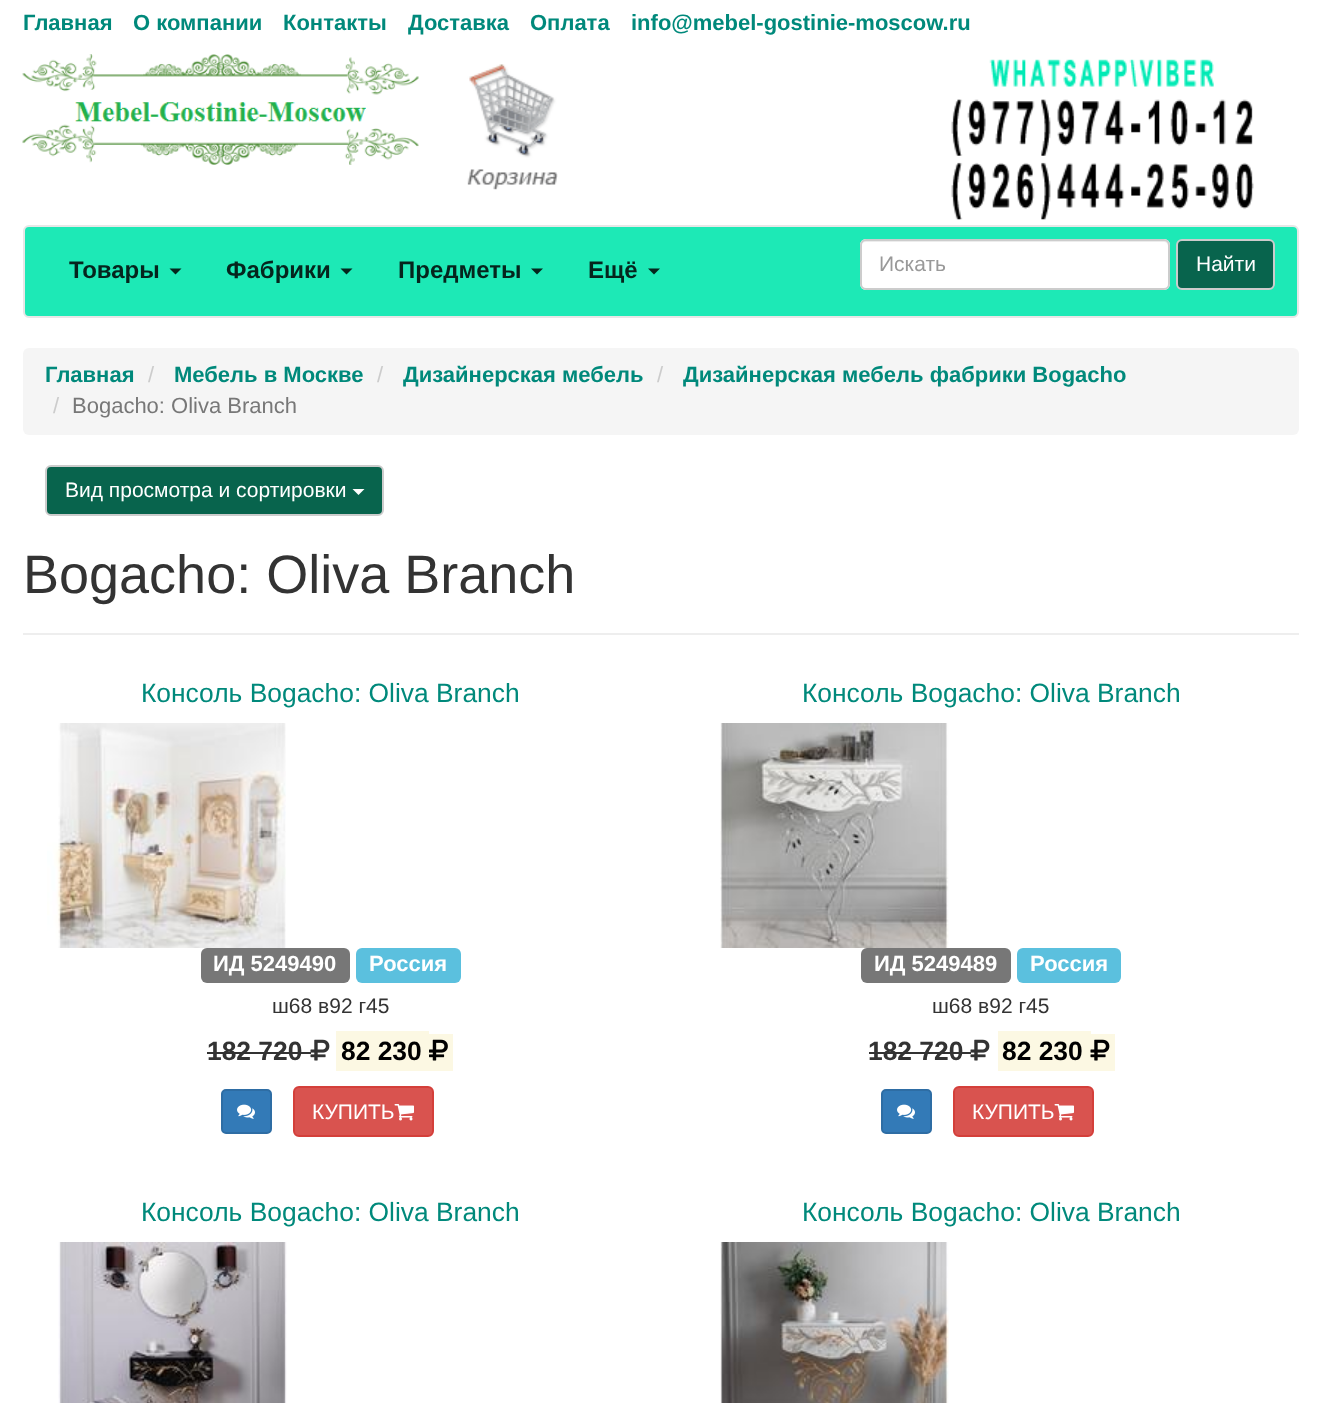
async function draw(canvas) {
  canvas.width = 1321;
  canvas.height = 1403;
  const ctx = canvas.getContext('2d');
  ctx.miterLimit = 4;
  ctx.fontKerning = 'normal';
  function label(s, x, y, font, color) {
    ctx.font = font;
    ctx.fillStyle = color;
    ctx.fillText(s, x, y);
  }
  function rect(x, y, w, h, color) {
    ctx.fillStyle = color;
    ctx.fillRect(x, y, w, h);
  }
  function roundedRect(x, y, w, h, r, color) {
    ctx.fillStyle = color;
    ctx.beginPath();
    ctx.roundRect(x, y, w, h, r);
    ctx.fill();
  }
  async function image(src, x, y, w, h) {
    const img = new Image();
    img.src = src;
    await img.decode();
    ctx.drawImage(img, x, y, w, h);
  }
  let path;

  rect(0, 0, 1321, 1403, '#fff');
  label('Главная', 23, 30, 'bold 22px Liberation Sans', '#00897b');
  label('О компании', 133, 30, 'bold 22px Liberation Sans', '#00897b');
  label('Контакты', 283, 30, 'bold 22px Liberation Sans', '#00897b');
  label('Доставка', 408, 30, 'bold 22px Liberation Sans', '#00897b');
  label('Оплата', 530, 30, 'bold 22px Liberation Sans', '#00897b');
  label('info@mebel-gostinie-moscow.ru', 631, 30, 'bold 22px Liberation Sans', '#00897b');
  await image('assets/img1.png', 22, 54, 397, 111);
  await image('assets/img2.png', 467, 64, 91, 126);
  await image('assets/img3.png', 951, 59, 303, 161);
  ctx.fillStyle = '#1de9b6';
  ctx.beginPath();
  ctx.roundRect(24, 226, 1274, 91, 5);
  ctx.fill();
  ctx.strokeStyle = '#e7e7e7';
  ctx.lineWidth = 2;
  ctx.stroke();
  label('Товары', 69, 278, 'bold 24px Liberation Sans', '#05251d');
  path = new Path2D('M169.5 268.5H181.5L175.5 274.5Z');
  ctx.fill(path);
  label('Фабрики', 226, 278, 'bold 24px Liberation Sans', '#05251d');
  path = new Path2D('M340.5 268.5H352.5L346.5 274.5Z');
  ctx.fill(path);
  label('Предметы', 398, 278, 'bold 24px Liberation Sans', '#05251d');
  path = new Path2D('M531 268.5H543L537 274.5Z');
  ctx.fill(path);
  label('Ещё', 588, 278, 'bold 24px Liberation Sans', '#05251d');
  path = new Path2D('M648 268.5H660L654 274.5Z');
  ctx.fill(path);
  roundedRect(860, 239, 310, 51, 6, '#fff');
  ctx.fillStyle = '#ececec';
  path = new Path2D('M866 242H1164C1166 242 1168 244 1168 246V286C1169 285 1169 284 1169 283V245C1169 242 1167 240 1164 240H866C863 240 861 242 861 245V246C861 244 863 242 866 242Z');
  ctx.fill(path);
  ctx.beginPath();
  ctx.roundRect(861, 240, 308, 49, 5);
  ctx.strokeStyle = '#ccc';
  ctx.stroke();
  label('Искать', 879, 271, '21px Liberation Sans', '#999');
  ctx.fillStyle = '#08644d';
  ctx.beginPath();
  ctx.roundRect(1177, 240, 97, 49, 5);
  ctx.fill();
  ctx.stroke();
  label('Найти', 1196, 271, '21px Liberation Sans', '#fff');
  roundedRect(23, 348, 1276, 87, 6, '#f5f5f5');
  label('Главная', 45, 382, 'bold 22px Liberation Sans', '#00897b');
  label('/', 148, 382, '22px Liberation Sans', '#ccc');
  label('Мебель в Москве', 174, 382, 'bold 22px Liberation Sans', '#00897b');
  label('/', 377, 382, '22px Liberation Sans', '#ccc');
  label('Дизайнерская мебель', 403, 382, 'bold 22px Liberation Sans', '#00897b');
  label('/', 657, 382, '22px Liberation Sans', '#ccc');
  label('Дизайнерская мебель фабрики Bogacho', 683, 382, 'bold 22px Liberation Sans', '#00897b');
  label('/', 53, 413, '22px Liberation Sans', '#ccc');
  label('Bogacho: Oliva Branch', 72, 413, '22px Liberation Sans', '#777');
  ctx.fillStyle = '#08644d';
  ctx.beginPath();
  ctx.roundRect(46, 466, 337, 49, 5);
  ctx.fill();
  ctx.stroke();
  label('Вид просмотра и сортировки', 65, 497, '21px Liberation Sans', '#fff');
  path = new Path2D('M352.5 489H364.5L358.5 495Z');
  ctx.fill(path);
  rect(23, 633, 1276, 2, '#eee');
  label('Bogacho: Oliva Branch', 23, 593, '54px Liberation Sans', '#333');
  label('Консоль Bogacho: Oliva Branch', 141, 702, '26.4px Liberation Sans', '#00897b');
  await image('assets/img4.png', 47, 723, 239, 225);
  roundedRect(201, 948, 149, 35, 6, '#777');
  label('ИД 5249490', 213, 971, 'bold 22px Liberation Sans', '#fff');
  roundedRect(356, 948, 105, 35, 6, '#5bc0de');
  label('Россия', 369, 971, 'bold 22px Liberation Sans', '#fff');
  label('ш68 в92 г45', 272, 1013, '21px Liberation Sans', '#333');
  label('182 720', 207, 1060, 'bold 26.4px Liberation Sans', '#333');
  rect(207, 1052, 104, 2, '#333');
  await image('assets/img5.png', 310, 1039, 20, 22);
  rect(336, 1031, 93, 40, '#fcf8e3');
  rect(429, 1034, 24, 37, '#fcf8e3');
  label('82 230', 341, 1060, 'bold 26.4px Liberation Sans', '#000');
  await image('assets/img6.png', 429, 1039, 19, 22);
  ctx.fillStyle = '#337ab7';
  ctx.beginPath();
  ctx.roundRect(222, 1090, 49, 43, 4);
  ctx.fill();
  ctx.strokeStyle = '#2e6da4';
  ctx.stroke();
  await image('assets/img7.png', 237, 1104, 18, 15);
  ctx.fillStyle = '#d9534f';
  ctx.beginPath();
  ctx.roundRect(294, 1087, 139, 49, 5);
  ctx.fill();
  ctx.strokeStyle = '#d43f3a';
  ctx.stroke();
  label('КУПИТЬ', 312, 1119, '21px Liberation Sans', '#fff');
  await image('assets/img8.png', 394, 1104, 20, 17);
  label('Консоль Bogacho: Oliva Branch', 802, 702, '26.4px Liberation Sans', '#00897b');
  await image('assets/img9.png', 720, 723, 229, 225);
  roundedRect(861, 948, 150, 35, 6, '#777');
  label('ИД 5249489', 874, 971, 'bold 22px Liberation Sans', '#fff');
  roundedRect(1017, 948, 104, 35, 6, '#5bc0de');
  label('Россия', 1030, 971, 'bold 22px Liberation Sans', '#fff');
  label('ш68 в92 г45', 932, 1013, '21px Liberation Sans', '#333');
  label('182 720', 868, 1060, 'bold 26.4px Liberation Sans', '#333');
  rect(869, 1052, 102, 2, '#333');
  await image('assets/img5.png', 970, 1039, 20, 22);
  rect(998, 1031, 93, 40, '#fcf8e3');
  rect(1091, 1034, 24, 37, '#fcf8e3');
  label('82 230', 1002, 1060, 'bold 26.4px Liberation Sans', '#000');
  await image('assets/img10.png', 1090, 1039, 20, 22);
  ctx.fillStyle = '#337ab7';
  ctx.beginPath();
  ctx.roundRect(882, 1090, 49, 43, 4);
  ctx.fill();
  ctx.strokeStyle = '#2e6da4';
  ctx.stroke();
  await image('assets/img7.png', 897, 1104, 18, 15);
  ctx.fillStyle = '#d9534f';
  ctx.beginPath();
  ctx.roundRect(954, 1087, 139, 49, 5);
  ctx.fill();
  ctx.strokeStyle = '#d43f3a';
  ctx.stroke();
  label('КУПИТЬ', 972, 1119, '21px Liberation Sans', '#fff');
  await image('assets/img8.png', 1054, 1104, 20, 17);
  label('Консоль Bogacho: Oliva Branch', 141, 1221, '26.4px Liberation Sans', '#00897b');
  await image('assets/img11.png', 58, 1242, 229, 161);
  label('Консоль Bogacho: Oliva Branch', 802, 1221, '26.4px Liberation Sans', '#00897b');
  await image('assets/img12.png', 720, 1242, 229, 161);
}

draw(document.querySelector('canvas'));
